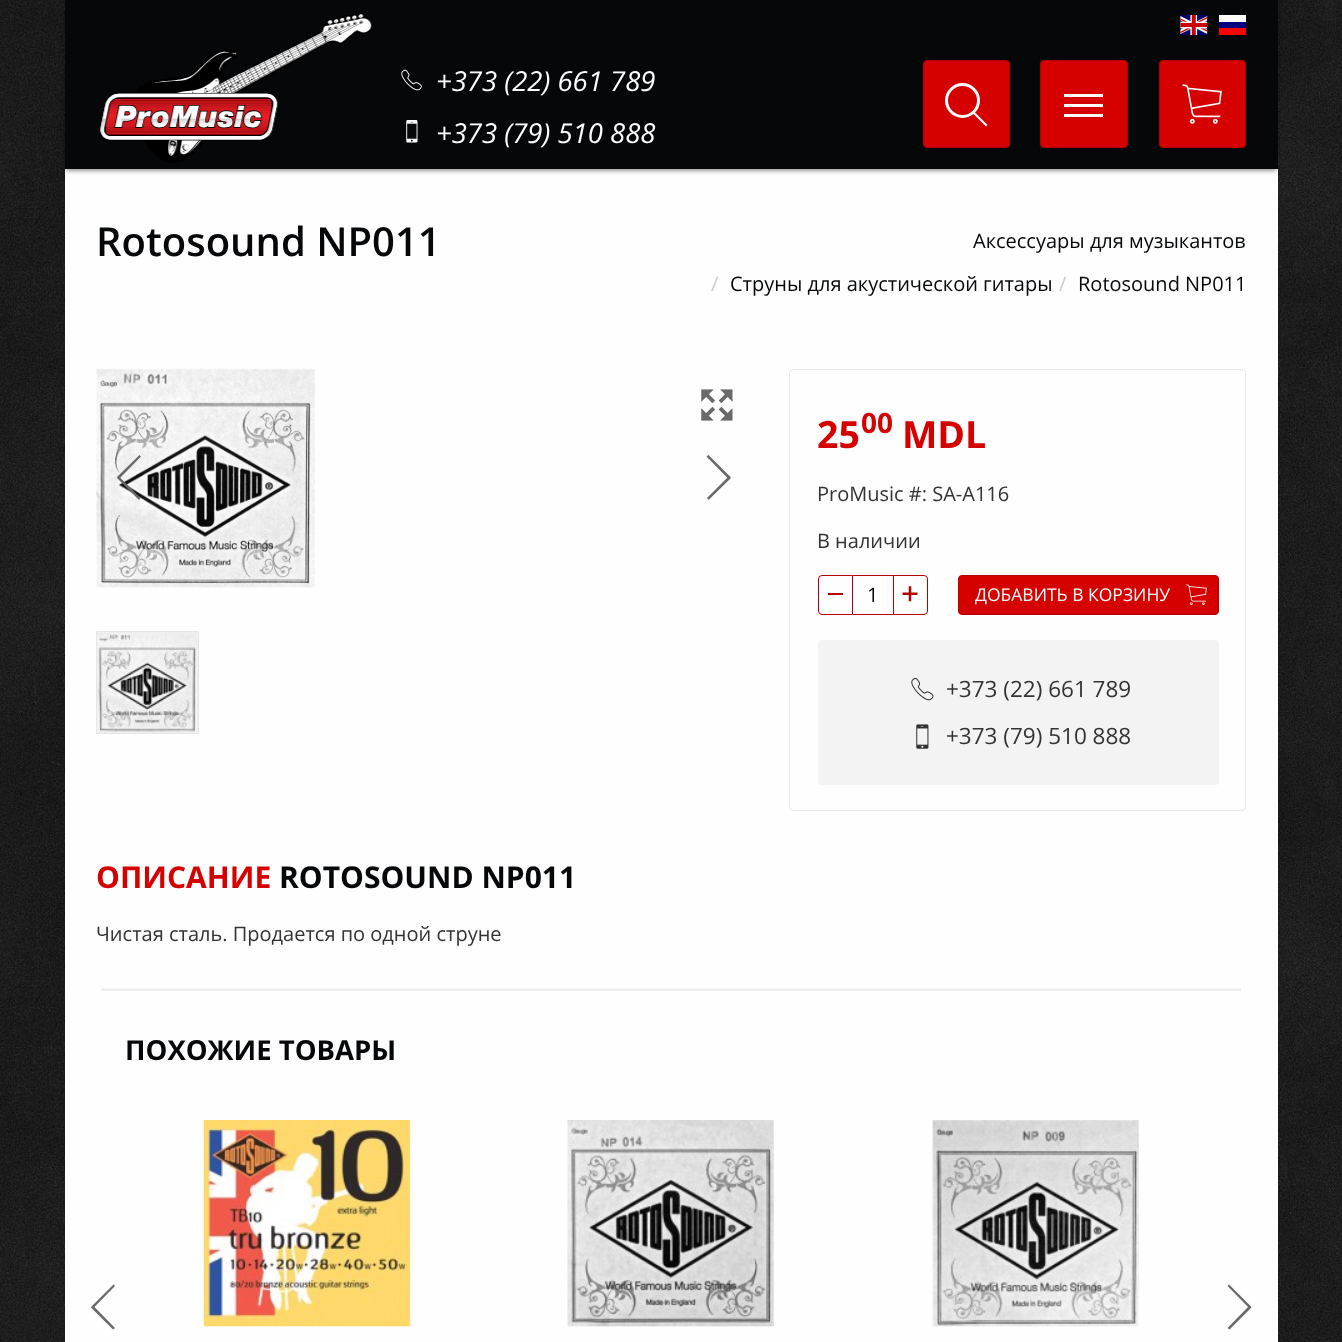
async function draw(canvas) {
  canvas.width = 1342;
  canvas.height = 1342;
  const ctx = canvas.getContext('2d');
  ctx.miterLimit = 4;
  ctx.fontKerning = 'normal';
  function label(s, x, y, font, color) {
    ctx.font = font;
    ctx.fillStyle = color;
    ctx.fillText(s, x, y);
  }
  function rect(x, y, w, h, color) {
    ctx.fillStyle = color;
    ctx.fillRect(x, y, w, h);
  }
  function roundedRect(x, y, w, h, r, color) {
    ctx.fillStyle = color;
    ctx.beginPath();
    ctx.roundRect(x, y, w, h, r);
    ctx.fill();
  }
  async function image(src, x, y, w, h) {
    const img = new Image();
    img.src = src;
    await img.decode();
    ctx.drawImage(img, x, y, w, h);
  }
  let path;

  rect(0, 0, 1342, 1342, '#fff');
  await image('assets/img1.png', 0, 0, 1342, 1342);
  rect(65, 169, 1213, 1173, '#fefefe');
  ctx.fillStyle = '#00000066';
  ctx.filter = 'blur(2px)';
  ctx.beginPath();
  ctx.rect(66, 5, 1210, 166);
  ctx.fill();
  ctx.filter = 'none';
  rect(65, 0, 1213, 169, '#050709');
  await image('assets/img2.png', 1180, 15, 28, 20);
  rect(1219, 15, 27, 7, '#fff');
  rect(1219, 22, 27, 6, '#01017e');
  rect(1219, 28, 27, 7, '#fe0101');
  await image('assets/img3.png', 100, 13, 273, 150);
  await image('assets/img4.png', 401, 69, 21, 22);
  label('+373 (22) 661 789', 436, 91, 'italic 27.5px Open Sans', '#fefefe');
  await image('assets/img5.png', 406, 120, 12, 23);
  label('+373 (79) 510 888', 436, 143, 'italic 27.5px Open Sans', '#fefefe');
  ctx.fillStyle = '#d50000';
  ctx.beginPath();
  ctx.roundRect(923.5, 60.5, 86, 87, 3.5);
  ctx.fill();
  ctx.strokeStyle = '#b50000';
  ctx.stroke();
  ctx.beginPath();
  ctx.arc(962.5, 100.5, 16, 0, 2 * Math.PI);
  ctx.strokeStyle = '#fefefe';
  ctx.lineWidth = 3;
  ctx.stroke();
  ctx.fillStyle = '#fefefe';
  path = new Path2D('M973.5 111L987.5 125L986 126.5L972 112.5Z');
  ctx.fill(path);
  ctx.fillStyle = '#d50000';
  ctx.beginPath();
  ctx.roundRect(1040.5, 60.5, 87, 87, 3.5);
  ctx.fill();
  ctx.strokeStyle = '#b50000';
  ctx.lineWidth = 1;
  ctx.stroke();
  rect(1064, 104, 39, 3, '#fefefe');
  rect(1064, 94, 39, 3, '#fefefe');
  rect(1064, 114, 39, 3, '#fefefe');
  ctx.fillStyle = '#d50000';
  ctx.beginPath();
  ctx.roundRect(1159.5, 60.5, 86, 87, 3.5);
  ctx.fill();
  ctx.stroke();
  await image('assets/img6.png', 1182, 84, 40, 40);
  label('Rotosound NP011', 96, 256, '600 40px Open Sans', '#050709');
  label('Аксессуары для музыкантов', 973, 248, '20px Open Sans', '#050709');
  label('/', 711, 291, '20px Open Sans', '#ccc');
  label('Струны для акустической гитары', 730, 291, '20px Open Sans', '#050709');
  label('/', 1059, 291, '20px Open Sans', '#ccc');
  label('Rotosound NP011', 1078, 291, '20px Open Sans', '#050709');
  await image('assets/img7.png', 96, 368, 219, 220);
  ctx.fillStyle = '#696969';
  path = new Path2D('M119 479L117 477L139.5 455L141 456.5Z');
  ctx.fill(path);
  path = new Path2D('M117 478L118.5 476L140.5 498L139 500Z');
  ctx.fill(path);
  path = new Path2D('M730.5 477L728.5 479L706.5 456.5L708.5 455Z');
  ctx.fill(path);
  path = new Path2D('M729 476L731 478L708.5 500L707 498Z');
  ctx.fill(path);
  await image('assets/img8.png', 701, 389, 32, 32);
  ctx.fillStyle = '#efefef';
  ctx.beginPath();
  ctx.rect(96.5, 631.5, 102, 102);
  ctx.fill();
  ctx.strokeStyle = '#e6e6e6';
  ctx.stroke();
  await image('assets/img9.png', 97, 633, 101, 100);
  ctx.beginPath();
  ctx.roundRect(789.5, 369.5, 456, 441, 3.5);
  ctx.stroke();
  label('25', 817, 448, 'bold 37.5px Open Sans', '#d50000');
  label('00', 861, 433, 'bold 28px Open Sans', '#d50000');
  label('MDL', 902, 448, 'bold 37.5px Open Sans', '#d50000');
  label('ProMusic #: SA-A116', 817, 501, '20px Open Sans', '#333');
  label('В наличии', 817, 548, '20px Open Sans', '#333');
  ctx.beginPath();
  ctx.roundRect(818.5, 575.5, 34, 39, [3.5, 0, 0, 3.5]);
  ctx.strokeStyle = '#b50000';
  ctx.stroke();
  rect(828, 593, 15, 2, '#b50000');
  rect(853, 575, 41, 1, '#b50000');
  rect(853, 614, 41, 1, '#b50000');
  label('1', 867, 602, '20px Open Sans', '#050709');
  ctx.fillStyle = '#fefefe';
  ctx.beginPath();
  ctx.roundRect(893.5, 575.5, 34, 39, [0, 3.5, 3.5, 0]);
  ctx.fill();
  ctx.stroke();
  await image('assets/img10.png', 902, 586, 16, 16);
  ctx.fillStyle = '#d50000';
  ctx.beginPath();
  ctx.roundRect(958.5, 575.5, 260, 39, 3.5);
  ctx.fill();
  ctx.stroke();
  label('ДОБАВИТЬ В КОРЗИНУ', 975, 601, '17.5px Open Sans', '#fefefe');
  await image('assets/img11.png', 1186, 584, 21, 21);
  roundedRect(818, 640, 401, 145, 4, '#f3f3f3');
  await image('assets/img12.png', 911, 677, 23, 24);
  label('+373 (22) 661 789', 946, 697, '22.5px Open Sans', '#333');
  await image('assets/img13.png', 916, 724, 13, 25);
  label('+373 (79) 510 888', 946, 744, '22.5px Open Sans', '#333');
  label('ОПИСАНИЕ', 96, 888, 'bold 30px Open Sans', '#d50000');
  label('ROTOSOUND NP011', 279, 888, 'bold 30px Open Sans', '#050709');
  label('Чистая сталь. Продается по одной струне', 96, 941, '20px Open Sans', '#333');
  rect(101, 989, 1140, 2, '#ededed');
  rect(101, 988, 1140, 1, '#f3f3f3');
  label('ПОХОЖИЕ ТОВАРЫ', 125, 1060, 'bold 27.5px Open Sans', '#050709');
  await image('assets/img14.png', 203, 1120, 208, 207);
  await image('assets/img15.png', 567, 1120, 207, 207);
  await image('assets/img16.png', 932, 1120, 207, 207);
  ctx.fillStyle = '#696969';
  path = new Path2D('M93 1308.5L91.5 1306.5L113.5 1284.5L115 1286Z');
  ctx.fill(path);
  path = new Path2D('M91 1307.5L93 1305.5L115 1328L113 1329.5Z');
  ctx.fill(path);
  path = new Path2D('M1251 1306.5L1249.5 1308.5L1227.5 1286L1229 1284.5Z');
  ctx.fill(path);
  path = new Path2D('M1249.5 1305.5L1251.5 1307.5L1229.5 1329.5L1227.5 1328Z');
  ctx.fill(path);
}

draw(document.querySelector('canvas'));
